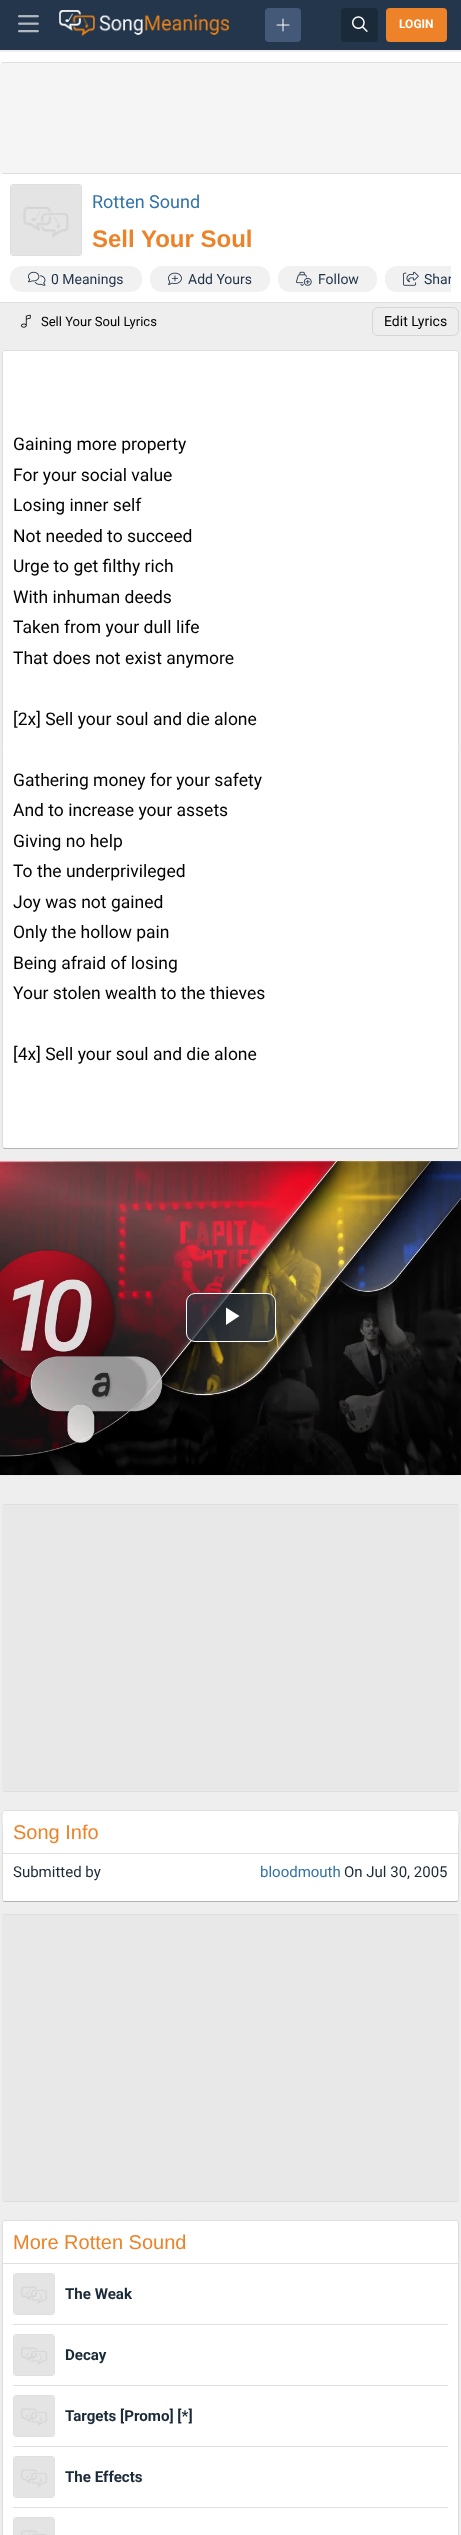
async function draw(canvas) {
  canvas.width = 461;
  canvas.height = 2535;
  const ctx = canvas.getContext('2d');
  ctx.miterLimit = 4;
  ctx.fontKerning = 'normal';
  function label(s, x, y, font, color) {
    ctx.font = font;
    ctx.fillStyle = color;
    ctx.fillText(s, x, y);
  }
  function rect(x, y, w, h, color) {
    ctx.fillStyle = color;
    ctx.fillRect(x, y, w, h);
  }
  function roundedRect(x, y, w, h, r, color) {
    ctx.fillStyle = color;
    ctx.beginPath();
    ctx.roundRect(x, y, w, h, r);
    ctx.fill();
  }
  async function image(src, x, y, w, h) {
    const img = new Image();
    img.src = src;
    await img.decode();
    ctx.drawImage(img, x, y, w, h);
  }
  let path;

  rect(0, 0, 461, 2535, '#eee');
  rect(0, 0, 461, 50, '#24364b');
  await image('assets/img1.png', 18, 15, 21, 18);
  await image('assets/img2.png', 59, 10, 170, 26);
  roundedRect(265, 8, 36, 34, 4, '#445977');
  await image('assets/img3.png', 276, 18, 14, 14);
  roundedRect(341, 8, 37, 34, 4, '#1b2a39');
  await image('assets/img4.png', 352, 16, 16, 16);
  roundedRect(386, 8, 61, 34, 4, '#ed8228');
  label('LOGIN', 399, 28, 'bold 12px Roboto', '#fff');
  rect(0, 52, 461, 250, '#fff');
  rect(0, 302, 461, 1, '#dedede');
  roundedRect(0, 62, 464, 112, 3, '#f5f5f5');
  rect(2, 62, 459, 1, '#dedede');
  rect(2, 173, 459, 1, '#dedede');
  ctx.beginPath();
  ctx.roundRect(10.5, 184.5, 71, 71, 2.5);
  ctx.strokeStyle = '#dedede';
  ctx.stroke();
  await image('assets/img5.png', 11, 185, 70, 70);
  label('Rotten Sound', 92, 208, '18px Roboto', '#3273a6');
  label('Sell Your Soul', 92, 247, 'bold 24px Liberation Sans', '#ed8228');
  roundedRect(10, 266, 132, 26, 12, '#f1f1f1');
  await image('assets/img6.png', 28, 271, 18, 15);
  label('0 Meanings', 51, 284, '14px Roboto', '#24364b');
  roundedRect(150, 266, 120, 26, 12, '#f1f1f1');
  await image('assets/img7.png', 168, 272, 14, 13);
  label('Add Yours', 188, 284, '14px Roboto', '#24364b');
  roundedRect(278, 266, 99, 26, 12, '#f1f1f1');
  await image('assets/img8.png', 296, 271, 16, 15);
  label('Follow', 318, 284, '14px Roboto', '#24364b');
  ctx.fillStyle = '#f1f1f1';
  ctx.beginPath();
  ctx.roundRect(385, 266, 66, 26, [12, 0, 0, 12]);
  ctx.fill();
  await image('assets/img9.png', 403, 271, 16, 15);
  ctx.save();
  ctx.beginPath();
  ctx.rect(10, 256, 441, 36);
  ctx.clip();
  label('Shar', 424, 284, '14px Roboto', '#24364b');
  ctx.restore();
  await image('assets/img10.png', 21, 314, 10, 14);
  label('Sell Your Soul Lyrics', 41, 326, '13px Roboto', '#000');
  ctx.beginPath();
  ctx.roundRect(372.5, 307.5, 86, 28, 5.5);
  ctx.strokeStyle = '#d6d6d6';
  ctx.stroke();
  label('Edit Lyrics', 384, 326, '14px Roboto', '#000');
  roundedRect(2, 350, 457, 799, 3, '#fff');
  path = new Path2D('M458 1148L456 1148.5H5L3 1148');
  ctx.strokeStyle = '#b1b3b7';
  ctx.stroke(path);
  path = new Path2D('M3 1148L2.5 1146V353L3 351L5 350.5H456L458 351L458.5 353V1146L458 1148');
  ctx.strokeStyle = '#dedede';
  ctx.stroke(path);
  label('Gaining more property', 13, 450, '17.5px Roboto', '#000');
  label('For your social value', 13, 481, '17.5px Roboto', '#000');
  label('Losing inner self', 13, 511, '17.5px Roboto', '#000');
  label('Not needed to succeed', 13, 542, '17.5px Roboto', '#000');
  label('Urge to get filthy rich', 13, 572, '17.5px Roboto', '#000');
  label('With inhuman deeds', 13, 603, '17.5px Roboto', '#000');
  label('Taken from your dull life', 13, 633, '17.5px Roboto', '#000');
  label('That does not exist anymore', 13, 664, '17.5px Roboto', '#000');
  label('[2x] Sell your soul and die alone', 13, 725, '17.5px Roboto', '#000');
  label('Gathering money for your safety', 13, 786, '17.5px Roboto', '#000');
  label('And to increase your assets', 13, 816, '17.5px Roboto', '#000');
  label('Giving no help', 13, 847, '17.5px Roboto', '#000');
  label('To the underprivileged', 13, 877, '17.5px Roboto', '#000');
  label('Joy was not gained', 13, 908, '17.5px Roboto', '#000');
  label('Only the hollow pain', 13, 938, '17.5px Roboto', '#000');
  label('Being afraid of losing', 13, 969, '17.5px Roboto', '#000');
  label('Your stolen wealth to the thieves', 13, 999, '17.5px Roboto', '#000');
  label('[4x] Sell your soul and die alone', 13, 1060, '17.5px Roboto', '#000');
  rect(2, 1475, 457, 1, '#e8e8e8');
  await image('assets/img11.png', 0, 1161, 461, 314);
  ctx.fillStyle = '#2b333fb3';
  ctx.beginPath();
  ctx.roundRect(186.5, 1293.5, 89, 48, 8.5);
  ctx.fill();
  ctx.strokeStyle = '#fff';
  ctx.stroke();
  ctx.fillStyle = '#fff';
  path = new Path2D('M226 1307.5V1325L239.5 1316Z');
  ctx.fill(path);
  roundedRect(2, 1504, 457, 288, 3, '#e8e8e8');
  rect(4, 1504, 454, 1, '#dedede');
  rect(4, 1791, 454, 1, '#dedede');
  roundedRect(2, 1810, 457, 92, 3, '#fff');
  path = new Path2D('M458 1901L456 1901.5H5L3 1901');
  ctx.strokeStyle = '#b1b3b7';
  ctx.stroke(path);
  path = new Path2D('M3 1901L2.5 1899V1827.5C2.5 1822.5 0 1810.5 5 1810.5H456C461 1810.5 458.5 1822.5 458.5 1827.5V1899L458 1901');
  ctx.strokeStyle = '#dedede';
  ctx.stroke(path);
  rect(3, 1853, 455, 1, '#e0e0e0');
  label('Song Info', 13, 1839, '20px Liberation Sans', '#ed8228');
  label('Submitted by', 13, 1877, '15px Roboto', '#1b2a39');
  label('bloodmouth', 260, 1877, '15px Roboto', '#3273a6');
  label('On Jul 30, 2005', 344, 1877, '15px Roboto', '#1b2a39');
  roundedRect(2, 1914, 457, 288, 3, '#e8e8e8');
  rect(4, 1914, 454, 1, '#dedede');
  rect(4, 2201, 454, 1, '#dedede');
  roundedRect(2, 2220, 457, 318, 3, '#fff');
  path = new Path2D('M3 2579L2.5 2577V2223L3 2221L5 2220.5H456L458 2221L458.5 2223V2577L458 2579');
  ctx.stroke(path);
  rect(3, 2263, 455, 1, '#e0e0e0');
  label('More Rotten Sound', 13, 2249, '20px Liberation Sans', '#ed8228');
  rect(13, 2324, 435, 1, '#e0e0e0');
  ctx.beginPath();
  ctx.roundRect(13.5, 2273.5, 41, 41, 2.5);
  ctx.strokeStyle = '#e0e0e0';
  ctx.stroke();
  await image('assets/img12.png', 14, 2274, 40, 40);
  label('The Weak', 65, 2299, 'bold 15.1px Roboto', '#1b2a39');
  rect(13, 2385, 435, 1, '#e0e0e0');
  ctx.beginPath();
  ctx.roundRect(13.5, 2334.5, 41, 41, 2.5);
  ctx.stroke();
  await image('assets/img12.png', 14, 2335, 40, 40);
  label('Decay', 65, 2360, 'bold 15.1px Roboto', '#1b2a39');
  rect(13, 2446, 435, 1, '#e0e0e0');
  ctx.beginPath();
  ctx.roundRect(13.5, 2395.5, 41, 41, 2.5);
  ctx.stroke();
  await image('assets/img12.png', 14, 2396, 40, 40);
  label('Targets [Promo] [*]', 65, 2421, 'bold 15.1px Roboto', '#1b2a39');
  rect(13, 2507, 435, 1, '#e0e0e0');
  ctx.beginPath();
  ctx.roundRect(13.5, 2456.5, 41, 41, 2.5);
  ctx.stroke();
  await image('assets/img12.png', 14, 2457, 40, 40);
  label('The Effects', 65, 2482, 'bold 15.1px Roboto', '#1b2a39');
  ctx.beginPath();
  ctx.roundRect(13.5, 2517.5, 41, 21, 2.5);
  ctx.stroke();
  await image('assets/img13.png', 14, 2518, 40, 17);
}

draw(document.querySelector('canvas'));
